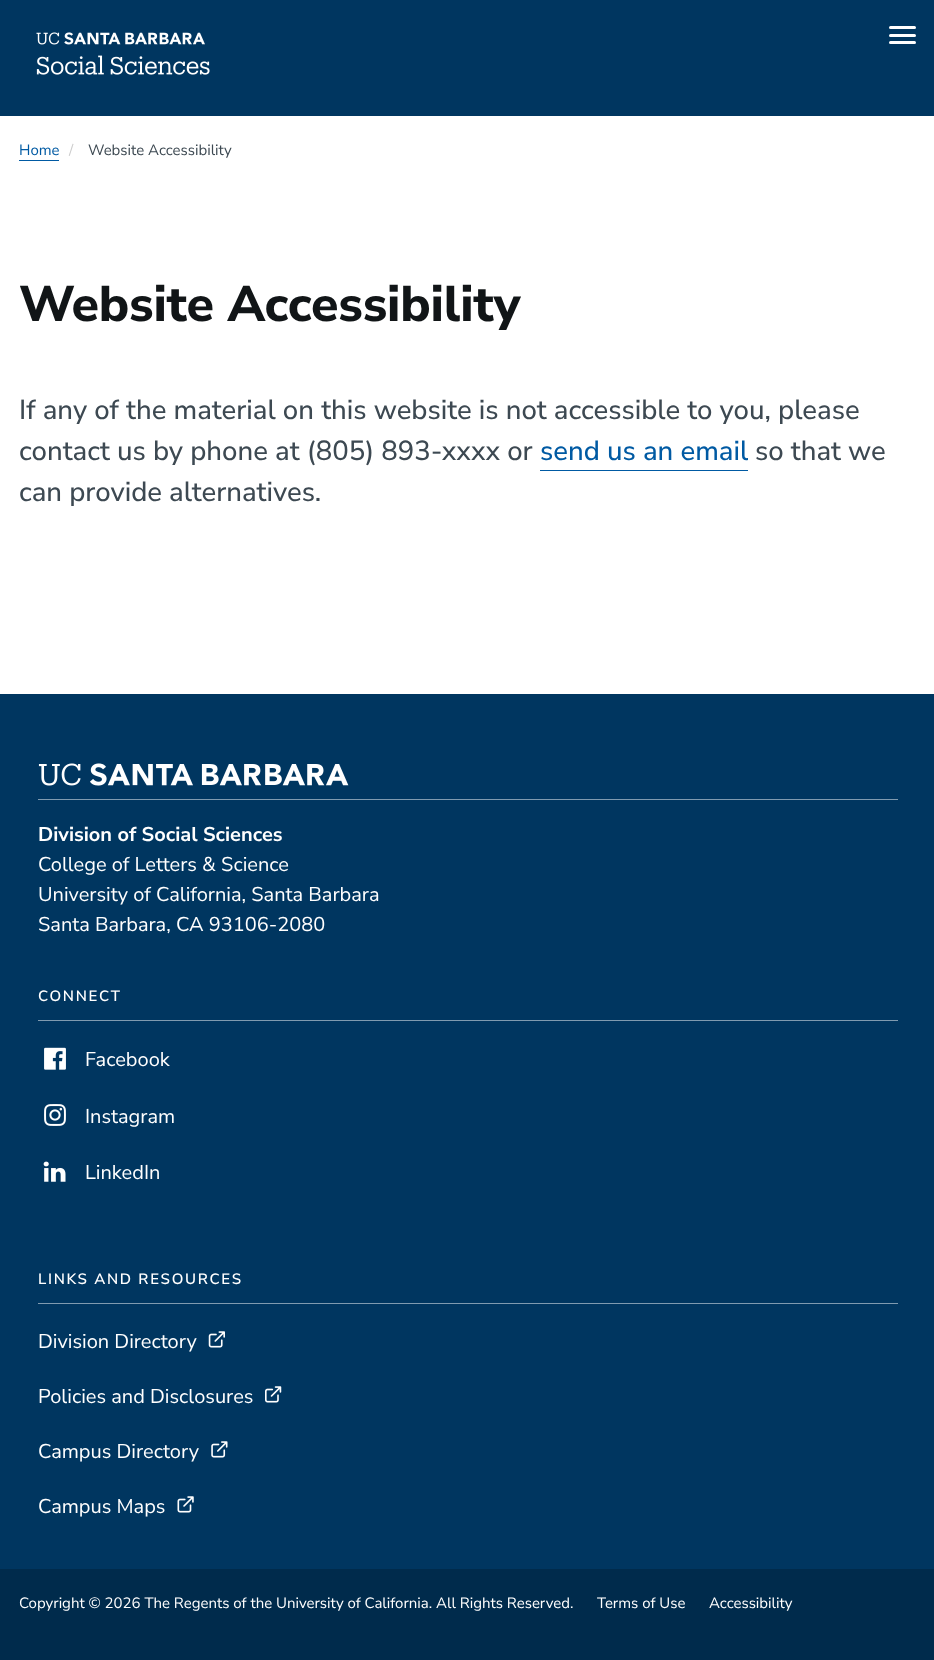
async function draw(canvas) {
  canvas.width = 934;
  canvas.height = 1660;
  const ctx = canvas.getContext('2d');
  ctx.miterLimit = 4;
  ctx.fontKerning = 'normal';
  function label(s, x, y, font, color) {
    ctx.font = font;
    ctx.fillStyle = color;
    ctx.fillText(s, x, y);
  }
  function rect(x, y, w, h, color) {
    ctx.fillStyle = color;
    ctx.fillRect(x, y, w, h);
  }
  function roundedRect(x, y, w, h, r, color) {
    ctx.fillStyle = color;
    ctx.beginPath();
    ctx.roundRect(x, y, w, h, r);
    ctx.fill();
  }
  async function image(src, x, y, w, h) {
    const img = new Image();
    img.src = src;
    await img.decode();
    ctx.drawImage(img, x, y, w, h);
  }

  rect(0, 0, 934, 1660, '#fff');
  rect(0, 0, 934, 116, '#003660');
  await image('assets/img1.png', 36, 32, 174, 43);
  roundedRect(889, 26, 27, 3, 1.5, '#fff');
  roundedRect(889, 34, 27, 3, 1.5, '#fff');
  roundedRect(889, 41, 27, 3, 1.5, '#fff');
  label('Home', 19, 155, '15px Nunito Sans', '#005aa3');
  rect(19, 160, 40, 1, '#005aa3');
  label('/', 69, 155, '15px Nunito Sans', '#ccc');
  label('Website Accessibility', 88, 155, '15px Nunito Sans', '#3d4952');
  ctx.letterSpacing = '-0.2px';
  label('Website Accessibility', 19, 321, '800 50px Nunito Sans', '#111517');
  ctx.letterSpacing = '0px';
  label('If any of the material on this website is not accessible to you, please', 19, 419, '500 27.5px Nunito Sans', '#3d4952');
  label('contact us by phone at (805) 893-xxxx or', 19, 460, '500 27.5px Nunito Sans', '#3d4952');
  label('send us an email', 540, 460, '500 27.5px Nunito Sans', '#005aa3');
  rect(540, 470, 208, 1, '#005aa3');
  label('so that we', 755, 460, '500 27.5px Nunito Sans', '#3d4952');
  label('can provide alternatives.', 19, 501, '500 27.5px Nunito Sans', '#3d4952');
  rect(0, 694, 934, 875, '#003660');
  rect(38, 799, 860, 1, '#809bb0');
  await image('assets/img2.png', 38, 763, 311, 23);
  label('Division of Social Sciences', 38, 841, 'bold 20px Nunito Sans', '#fff');
  label('College of Letters & Science', 38, 871, '20px Nunito Sans', '#fff');
  label('University of California, Santa Barbara', 38, 901, '20px Nunito Sans', '#fff');
  label('Santa Barbara, CA 93106-2080', 38, 931, '20px Nunito Sans', '#fff');
  rect(38, 1020, 860, 1, '#809bb0');
  ctx.letterSpacing = '1.7px';
  label('CONNECT', 38, 1001, '600 15px Nunito Sans', '#fff');
  await image('assets/img3.png', 44, 1047, 22, 23);
  ctx.letterSpacing = '0px';
  label('Facebook', 85, 1066, '20px Nunito Sans', '#fff');
  await image('assets/img4.png', 44, 1104, 22, 22);
  label('Instagram', 85, 1123, '20px Nunito Sans', '#fff');
  await image('assets/img5.png', 43, 1161, 23, 21);
  label('LinkedIn', 85, 1179, '20px Nunito Sans', '#fff');
  rect(38, 1303, 860, 1, '#809bb0');
  ctx.letterSpacing = '1.7px';
  label('LINKS AND RESOURCES', 38, 1284, '600 15px Nunito Sans', '#fff');
  ctx.letterSpacing = '0px';
  label('Division Directory', 38, 1348, '20px Nunito Sans', '#fff');
  await image('assets/img6.png', 208, 1331, 17, 17);
  label('Policies and Disclosures', 38, 1403, '20px Nunito Sans', '#fff');
  await image('assets/img7.png', 265, 1386, 17, 17);
  label('Campus Directory', 38, 1458, '20px Nunito Sans', '#fff');
  await image('assets/img8.png', 211, 1441, 17, 17);
  label('Campus Maps', 38, 1513, '20px Nunito Sans', '#fff');
  await image('assets/img9.png', 177, 1496, 17, 17);
  rect(0, 1569, 934, 91, '#002b4c');
  label('Copyright © 2026 The Regents of the University of California. All Rights Reserved.', 19, 1608, '15px Nunito Sans', '#fff');
  label('Terms of Use', 597, 1608, '15px Nunito Sans', '#fff');
  label('Accessibility', 709, 1608, '15px Nunito Sans', '#fff');
}

draw(document.querySelector('canvas'));
